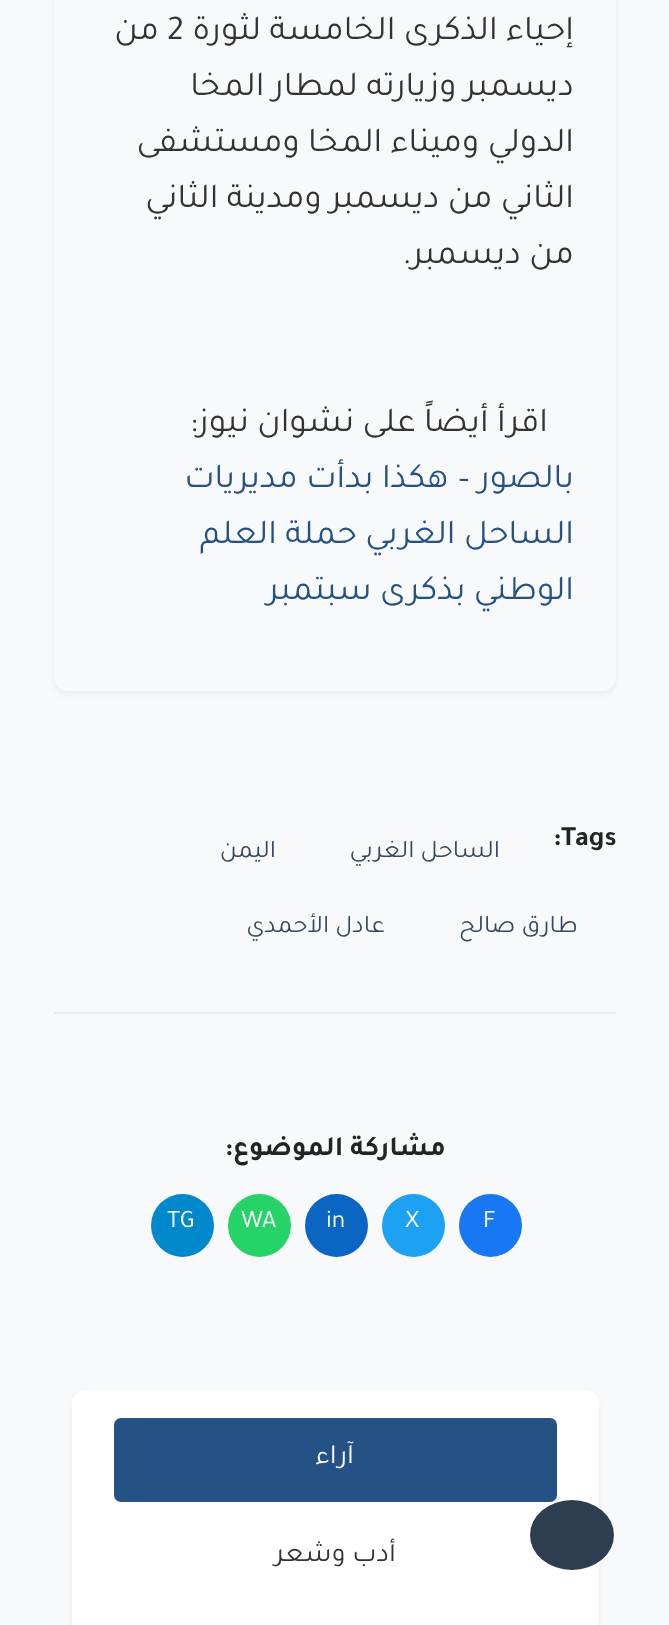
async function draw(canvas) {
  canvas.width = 669;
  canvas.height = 1625;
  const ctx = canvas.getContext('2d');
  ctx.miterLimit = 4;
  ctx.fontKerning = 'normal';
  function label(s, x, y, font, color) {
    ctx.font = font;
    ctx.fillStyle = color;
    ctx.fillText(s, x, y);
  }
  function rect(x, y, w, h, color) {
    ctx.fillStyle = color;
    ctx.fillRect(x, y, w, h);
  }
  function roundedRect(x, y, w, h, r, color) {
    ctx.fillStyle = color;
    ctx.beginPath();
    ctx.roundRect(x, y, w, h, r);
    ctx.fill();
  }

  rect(0, 0, 669, 1625, '#f8f9fa');
  ctx.fillStyle = '#0000000d';
  ctx.filter = 'blur(3.5px)';
  ctx.beginPath();
  ctx.roundRect(54, -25, 562, 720, 14);
  ctx.fill();
  ctx.filter = 'none';
  roundedRect(54, -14, 562, 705, 14, '#f8f9fa');
  ctx.direction = 'rtl';
  label('إحياء الذكرى الخامسة لثورة', 574, 39, '35px Tajawal', '#333');
  ctx.direction = 'ltr';
  label('2', 167, 39, '35px Tajawal', '#333');
  ctx.direction = 'rtl';
  label('من', 159, 39, '35px Tajawal', '#333');
  label('ديسمبر وزيارته لمطار المخا', 574, 95, '35px Tajawal', '#333');
  label('الدولي وميناء المخا ومستشفى', 574, 151, '35px Tajawal', '#333');
  label('الثاني من ديسمبر ومدينة الثاني', 574, 207, '35px Tajawal', '#333');
  label('من ديسمبر.', 574, 263, '35px Tajawal', '#333');
  label('اقرأ أيضاً على نشوان نيوز:', 548, 431, '35px Tajawal', '#333');
  label('بالصور – هكذا بدأت مديريات', 574, 487, '35px Tajawal', '#245284');
  label('الساحل الغربي حملة العلم', 574, 543, '35px Tajawal', '#245284');
  label('الوطني بذكرى سبتمبر', 574, 599, '35px Tajawal', '#245284');
  ctx.direction = 'ltr';
  label(':Tags', 553, 845, 'bold 28px Tajawal', '#212529');
  ctx.direction = 'rtl';
  label('الساحل الغربي', 500, 857, '25.25px Tajawal', '#34495e');
  label('اليمن', 276, 857, '25.25px Tajawal', '#34495e');
  label('طارق صالح', 578, 932, '25.25px Tajawal', '#34495e');
  label('عادل الأحمدي', 385, 932, '25.25px Tajawal', '#34495e');
  rect(54, 1012, 562, 2, '#e9ecef');
  label('مشاركة الموضوع:', 446, 1155, 'bold 28px Tajawal', '#212529');
  ctx.fillStyle = '#1877f2';
  ctx.beginPath();
  ctx.arc(490.5, 1225.5, 31.5, 0, 2 * Math.PI);
  ctx.fill();
  ctx.direction = 'ltr';
  label('F', 483, 1227, '25.25px Tajawal', '#fff');
  ctx.fillStyle = '#1da1f2';
  ctx.beginPath();
  ctx.arc(413.5, 1225.5, 31.5, 0, 2 * Math.PI);
  ctx.fill();
  label('X', 405, 1227, '25.25px Tajawal', '#fff');
  ctx.fillStyle = '#0a66c2';
  ctx.beginPath();
  ctx.arc(336.5, 1225.5, 31.5, 0, 2 * Math.PI);
  ctx.fill();
  label('in', 326, 1227, '25.25px Tajawal', '#fff');
  ctx.fillStyle = '#25d366';
  ctx.beginPath();
  ctx.arc(259.5, 1225.5, 31.5, 0, 2 * Math.PI);
  ctx.fill();
  label('WA', 241, 1227, '25.25px Tajawal', '#fff');
  ctx.fillStyle = '#08c';
  ctx.beginPath();
  ctx.arc(182.5, 1225.5, 31.5, 0, 2 * Math.PI);
  ctx.fill();
  label('TG', 167, 1227, '25.25px Tajawal', '#fff');
  ctx.fillStyle = '#0000000d';
  ctx.filter = 'blur(3.5px)';
  ctx.beginPath();
  ctx.roundRect(72, 1393, 527, 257, 14);
  ctx.fill();
  ctx.filter = 'none';
  roundedRect(72, 1390, 527, 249, 14, '#fff');
  roundedRect(114, 1418, 443, 84, 7, '#245284');
  ctx.direction = 'rtl';
  label('آراء', 354, 1463, '28px Tajawal', '#fff');
  label('أدب وشعر', 396, 1561, '28px Tajawal', '#333');
  ctx.fillStyle = '#2c3e50';
  ctx.beginPath();
  ctx.ellipse(572, 1535, 42, 35, 0, 0, 2 * Math.PI);
  ctx.fill();
}

draw(document.querySelector('canvas'));
